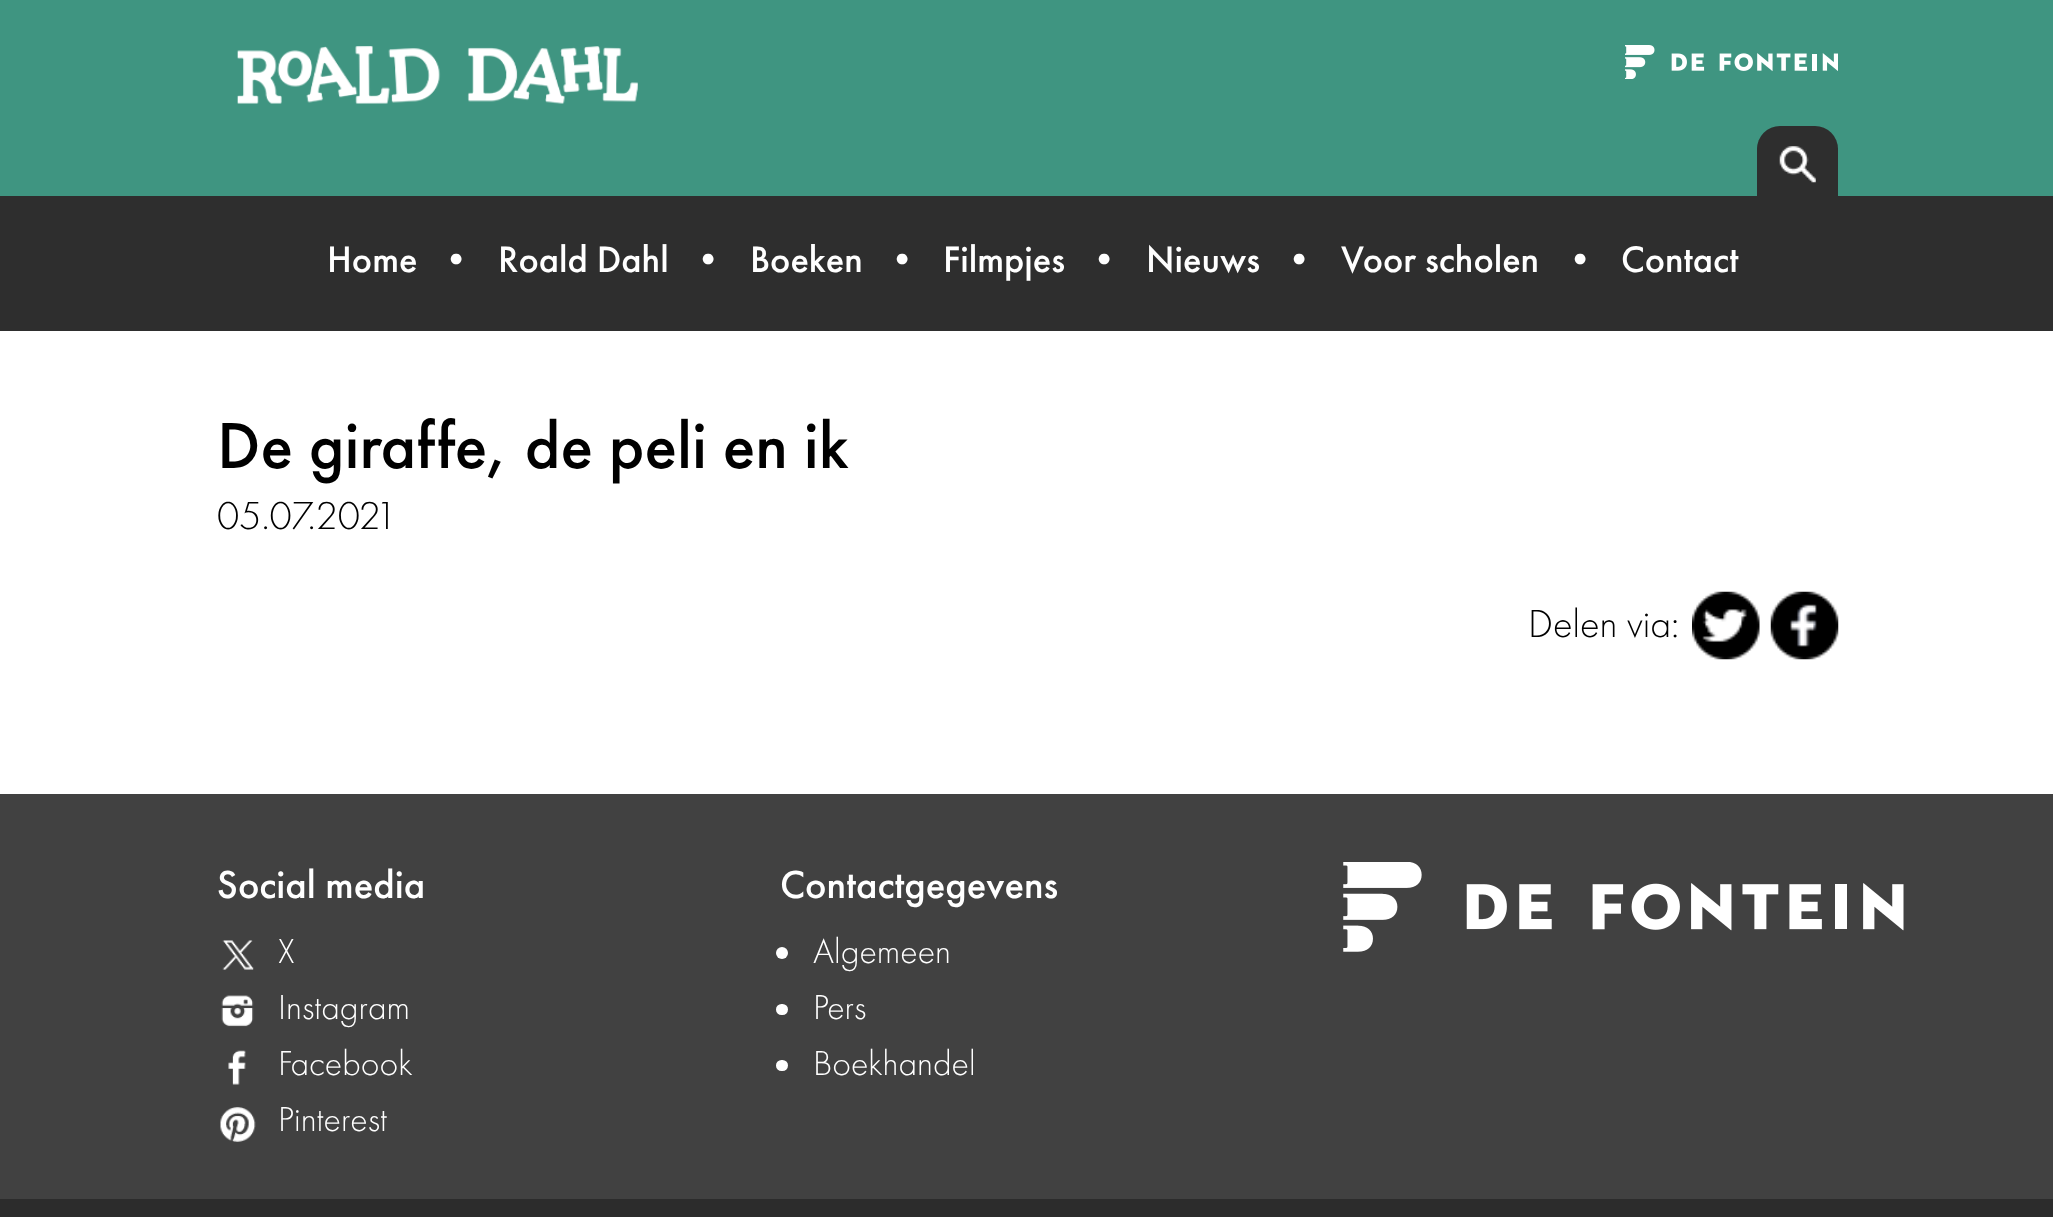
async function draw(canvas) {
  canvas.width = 2053;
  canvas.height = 1217;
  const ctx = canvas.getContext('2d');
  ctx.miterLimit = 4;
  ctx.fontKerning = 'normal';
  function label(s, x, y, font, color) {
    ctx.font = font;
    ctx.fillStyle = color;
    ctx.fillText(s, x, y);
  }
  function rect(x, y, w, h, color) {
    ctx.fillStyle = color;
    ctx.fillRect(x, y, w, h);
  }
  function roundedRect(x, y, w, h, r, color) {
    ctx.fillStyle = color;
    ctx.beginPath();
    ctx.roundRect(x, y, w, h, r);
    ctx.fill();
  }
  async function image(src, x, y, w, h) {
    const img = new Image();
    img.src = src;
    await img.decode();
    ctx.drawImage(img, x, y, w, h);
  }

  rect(0, 0, 2053, 1217, '#fff');
  rect(0, 0, 2053, 196, '#3f9581');
  await image('assets/img1.png', 237, 46, 401, 58);
  await image('assets/img2.png', 1625, 45, 213, 34);
  ctx.fillStyle = '#2e2e2e';
  ctx.beginPath();
  ctx.roundRect(1757, 126, 81, 70, [23, 23, 0, 0]);
  ctx.fill();
  await image('assets/img3.png', 1779, 146, 37, 37);
  rect(0, 196, 2053, 135, '#2e2e2e');
  label('Home', 327, 272, '500 38.25px Futura PT', '#fff');
  label('•', 437, 272, '500 38.25px Futura PT', '#fff');
  label('Roald Dahl', 498, 272, '500 38.25px Futura PT', '#fff');
  label('•', 689, 272, '500 38.25px Futura PT', '#fff');
  label('Boeken', 750, 272, '500 38.25px Futura PT', '#fff');
  label('•', 883, 272, '500 38.25px Futura PT', '#fff');
  label('Filmpjes', 943, 272, '500 38.25px Futura PT', '#fff');
  label('•', 1085, 272, '500 38.25px Futura PT', '#fff');
  label('Nieuws', 1146, 272, '500 38.25px Futura PT', '#fff');
  label('•', 1280, 272, '500 38.25px Futura PT', '#fff');
  label('Voor scholen', 1341, 272, '500 38.25px Futura PT', '#fff');
  label('•', 1561, 272, '500 38.25px Futura PT', '#fff');
  label('Contact', 1621, 272, '500 38.25px Futura PT', '#fff');
  label('De giraffe, de peli en ik', 217, 468, '500 67.5px Futura PT', '#000');
  label('05.07.2021', 217, 529, '300 40.5px Futura PT', '#000');
  label('Delen via:', 1528, 637, '300 40.5px Futura PT', '#000');
  await image('assets/img4.png', 1692, 591, 68, 69);
  await image('assets/img5.png', 1770, 591, 69, 69);
  rect(0, 794, 2053, 405, '#414141');
  label('Social media', 217, 898, '500 40.5px Futura PT', '#fff');
  await image('assets/img6.png', 222, 940, 32, 30);
  label('X', 278, 963, '300 36px Futura PT', '#fff');
  await image('assets/img7.png', 221, 995, 33, 32);
  label('Instagram', 278, 1019, '300 36px Futura PT', '#fff');
  await image('assets/img8.png', 228, 1050, 18, 35);
  label('Facebook', 278, 1075, '300 36px Futura PT', '#fff');
  await image('assets/img9.png', 220, 1107, 36, 35);
  label('Pinterest', 278, 1131, '300 36px Futura PT', '#fff');
  label('Contactgegevens', 780, 898, '500 40.5px Futura PT', '#fff');
  ctx.beginPath();
  ctx.arc(782, 953, 6, 0, 2 * Math.PI);
  ctx.fill();
  label('Algemeen', 813, 963, '300 36px Futura PT', '#fff');
  roundedRect(776, 1004, 12, 11, 5.5, '#fff');
  label('Pers', 813, 1019, '300 36px Futura PT', '#fff');
  roundedRect(776, 1060, 12, 11, 5.5, '#fff');
  label('Boekhandel', 813, 1075, '300 36px Futura PT', '#fff');
  await image('assets/img10.png', 1343, 862, 561, 90);
  rect(0, 1199, 2053, 18, '#2c2c2c');
}

draw(document.querySelector('canvas'));
